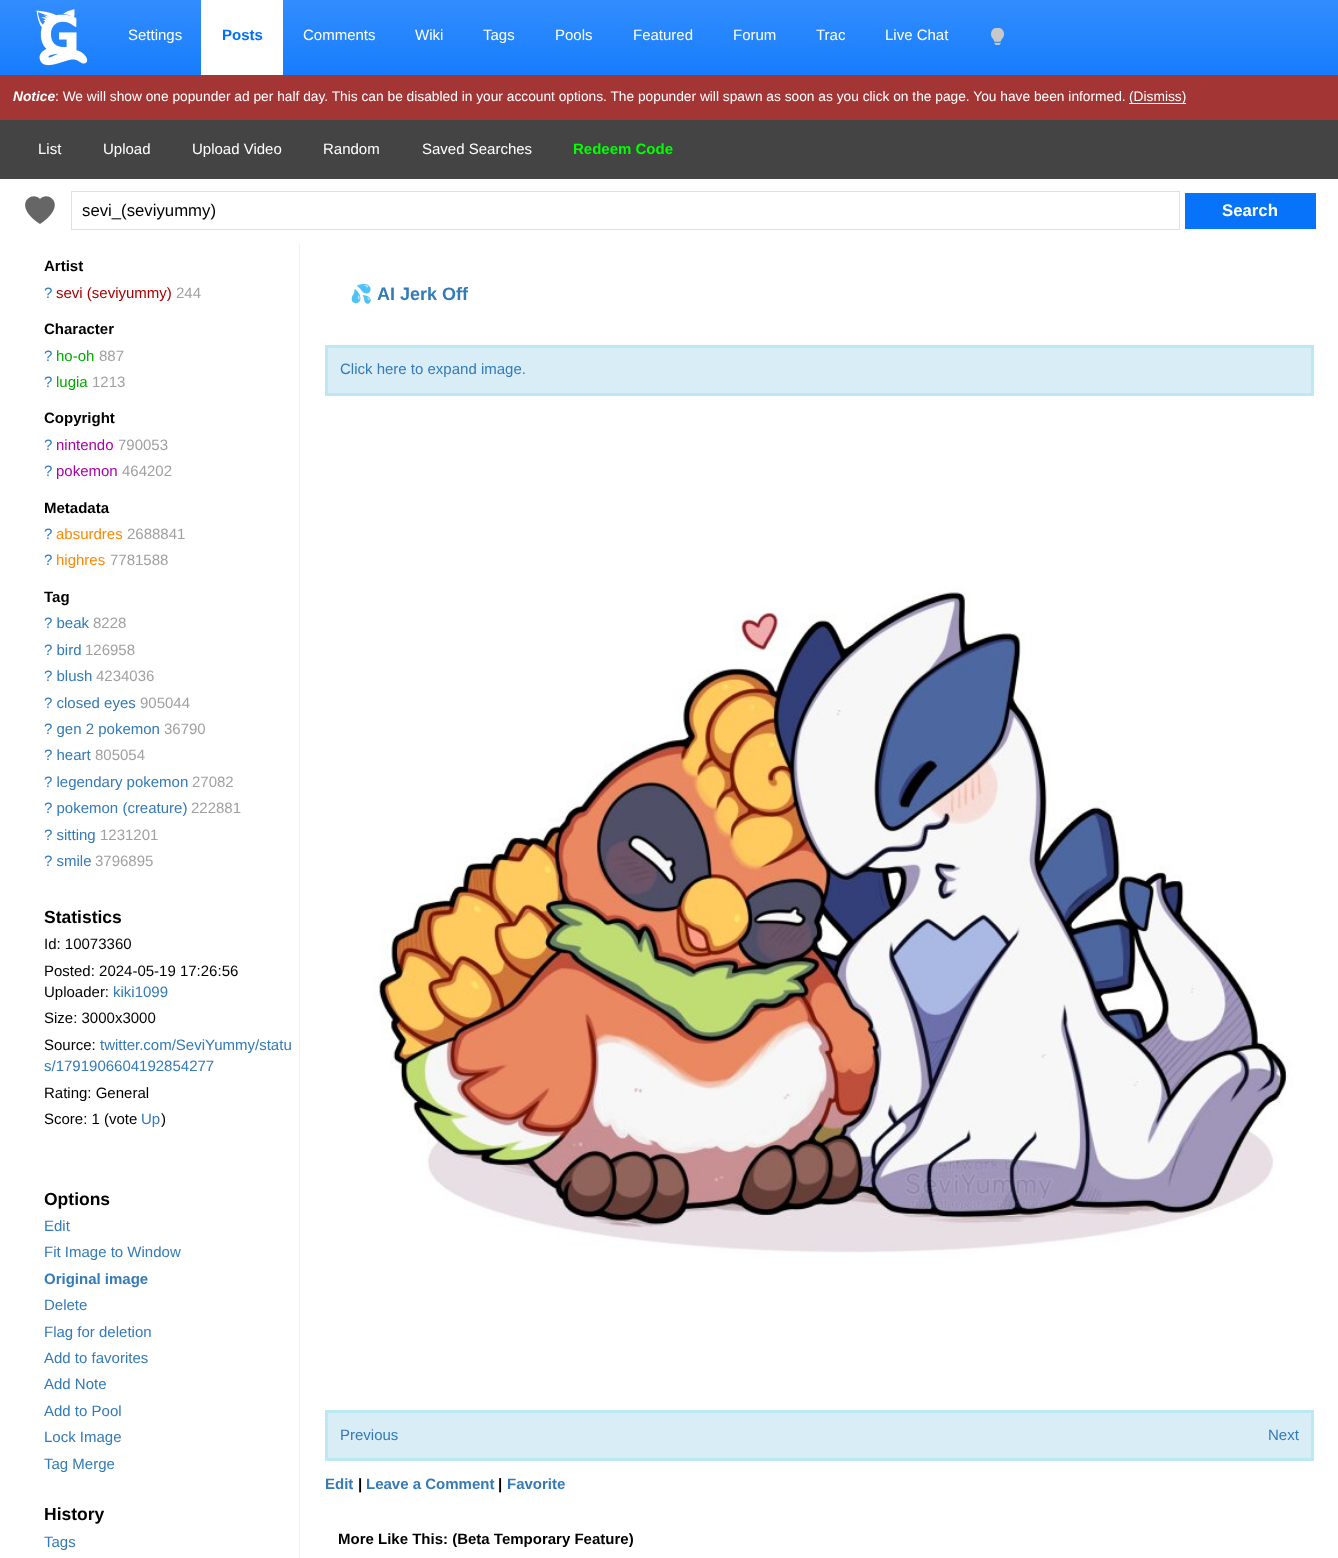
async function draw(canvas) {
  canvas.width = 1338;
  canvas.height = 1558;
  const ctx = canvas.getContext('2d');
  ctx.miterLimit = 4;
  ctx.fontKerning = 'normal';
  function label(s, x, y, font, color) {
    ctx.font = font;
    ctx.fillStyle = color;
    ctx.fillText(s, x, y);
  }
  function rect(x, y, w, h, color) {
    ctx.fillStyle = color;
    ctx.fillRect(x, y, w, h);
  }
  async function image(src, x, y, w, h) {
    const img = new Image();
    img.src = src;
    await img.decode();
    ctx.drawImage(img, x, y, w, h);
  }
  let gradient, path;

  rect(0, 0, 1338, 1558, '#fff');
  gradient = ctx.createLinearGradient(669, 0, 669, 120);
  gradient.addColorStop(0, '#328dfe');
  gradient.addColorStop(1, '#0773fb');
  ctx.fillStyle = gradient;
  ctx.fillRect(0, 0, 1338, 75);
  await image('assets/img1.png', 36, 9, 52, 57);
  label('Settings', 128, 40, '15px Liberation Sans', '#fff');
  rect(201, 0, 82, 75, '#fff');
  label('Posts', 222, 40, 'bold 15px Liberation Sans', '#006ffa');
  label('Comments', 303, 40, '15px Liberation Sans', '#fff');
  label('Wiki', 415, 40, '15px Liberation Sans', '#fff');
  label('Tags', 483, 40, '15px Liberation Sans', '#fff');
  label('Pools', 555, 40, '15px Liberation Sans', '#fff');
  label('Featured', 633, 40, '15px Liberation Sans', '#fff');
  label('Forum', 733, 40, '15px Liberation Sans', '#fff');
  label('Trac', 816, 40, '15px Liberation Sans', '#fff');
  label('Live Chat', 885, 40, '15px Liberation Sans', '#fff');
  await image('assets/img2.png', 991, 28, 13, 17);
  rect(0, 75, 1338, 45, '#a43535');
  label('Notice', 13, 101, 'italic bold 13.75px Liberation Sans', '#fff');
  label(': We will show one popunder ad per half day. This can be disabled in your account options. The popunder will spawn as soon as you click on the page. You have been informed.', 55, 101, '13.75px Liberation Sans', '#fff');
  rect(1129, 103, 57, 1, '#fff');
  label('(Dismiss)', 1129, 101, '13.75px Liberation Sans', '#fff');
  rect(0, 120, 1338, 59, '#444');
  label('List', 38, 154, '15px Liberation Sans', '#fff');
  label('Upload', 103, 154, '15px Liberation Sans', '#fff');
  label('Upload Video', 192, 154, '15px Liberation Sans', '#fff');
  label('Random', 323, 154, '15px Liberation Sans', '#fff');
  label('Saved Searches', 422, 154, '15px Liberation Sans', '#fff');
  label('Redeem Code', 573, 154, 'bold 15px Liberation Sans', '#0f0');
  ctx.fillStyle = '#666';
  path = new Path2D('M40 199C48 190 69 205 40 224C11 205 32 190 40 199Z');
  ctx.fill(path, 'evenodd');
  ctx.strokeStyle = '#e0e0e0';
  ctx.strokeRect(71.5, 191.5, 1108, 38);
  label('sevi_(seviyummy)', 82, 216, '16.75px Liberation Sans', '#000');
  rect(1185, 193, 131, 36, '#0773fb');
  label('Search', 1222, 216, 'bold 16.75px Liberation Sans', '#fff');
  rect(299, 244, 1, 1314, '#f0f0f0');
  label('Artist', 44, 271, 'bold 15px Liberation Sans', '#000');
  label('?', 44, 298, '15px Liberation Sans', '#337ab7');
  label('sevi (seviyummy)', 56, 298, '15px Liberation Sans', '#a00');
  label('244', 176, 298, '15px Liberation Sans', '#a0a0a0');
  label('Character', 44, 334, 'bold 15px Liberation Sans', '#000');
  label('?', 44, 361, '15px Liberation Sans', '#337ab7');
  label('ho-oh', 56, 361, '15px Liberation Sans', '#0a0');
  label('887', 99, 361, '15px Liberation Sans', '#a0a0a0');
  label('?', 44, 387, '15px Liberation Sans', '#337ab7');
  label('lugia', 56, 387, '15px Liberation Sans', '#0a0');
  label('1213', 92, 387, '15px Liberation Sans', '#a0a0a0');
  label('Copyright', 44, 423, 'bold 15px Liberation Sans', '#000');
  label('?', 44, 450, '15px Liberation Sans', '#337ab7');
  label('nintendo', 56, 450, '15px Liberation Sans', '#a0a');
  label('790053', 118, 450, '15px Liberation Sans', '#a0a0a0');
  label('?', 44, 476, '15px Liberation Sans', '#337ab7');
  label('pokemon', 56, 476, '15px Liberation Sans', '#a0a');
  label('464202', 122, 476, '15px Liberation Sans', '#a0a0a0');
  label('Metadata', 44, 513, 'bold 15px Liberation Sans', '#000');
  label('?', 44, 539, '15px Liberation Sans', '#337ab7');
  label('absurdres', 56, 539, '15px Liberation Sans', '#f80');
  label('2688841', 127, 539, '15px Liberation Sans', '#a0a0a0');
  label('?', 44, 565, '15px Liberation Sans', '#337ab7');
  label('highres', 56, 565, '15px Liberation Sans', '#f80');
  label('7781588', 110, 565, '15px Liberation Sans', '#a0a0a0');
  label('Tag', 44, 602, 'bold 15px Liberation Sans', '#000');
  label('? beak', 44, 628, '15px Liberation Sans', '#337ab7');
  label('8228', 93, 628, '15px Liberation Sans', '#a0a0a0');
  label('? bird', 44, 655, '15px Liberation Sans', '#337ab7');
  label('126958', 85, 655, '15px Liberation Sans', '#a0a0a0');
  label('? blush', 44, 681, '15px Liberation Sans', '#337ab7');
  label('4234036', 96, 681, '15px Liberation Sans', '#a0a0a0');
  label('? closed eyes', 44, 708, '15px Liberation Sans', '#337ab7');
  label('905044', 140, 708, '15px Liberation Sans', '#a0a0a0');
  label('? gen 2 pokemon', 44, 734, '15px Liberation Sans', '#337ab7');
  label('36790', 164, 734, '15px Liberation Sans', '#a0a0a0');
  label('? heart', 44, 760, '15px Liberation Sans', '#337ab7');
  label('805054', 95, 760, '15px Liberation Sans', '#a0a0a0');
  label('? legendary pokemon', 44, 787, '15px Liberation Sans', '#337ab7');
  label('27082', 192, 787, '15px Liberation Sans', '#a0a0a0');
  label('? pokemon (creature)', 44, 813, '15px Liberation Sans', '#337ab7');
  label('222881', 191, 813, '15px Liberation Sans', '#a0a0a0');
  label('? sitting', 44, 840, '15px Liberation Sans', '#337ab7');
  label('1231201', 100, 840, '15px Liberation Sans', '#a0a0a0');
  label('? smile', 44, 866, '15px Liberation Sans', '#337ab7');
  label('3796895', 95, 866, '15px Liberation Sans', '#a0a0a0');
  label('Statistics', 44, 923, 'bold 17.5px Liberation Sans', '#000');
  label('Id: 10073360', 44, 949, '15px Liberation Sans', '#000');
  label('Posted: 2024-05-19 17:26:56', 44, 976, '15px Liberation Sans', '#000');
  label('Uploader:', 44, 997, '15px Liberation Sans', '#000');
  label('kiki1099', 113, 997, '15px Liberation Sans', '#337ab7');
  label('Size: 3000x3000', 44, 1023, '15px Liberation Sans', '#000');
  label('Source:', 44, 1050, '15px Liberation Sans', '#000');
  label('twitter.com/SeviYummy/statu', 100, 1050, '15px Liberation Sans', '#337ab7');
  label('s/1791906604192854277', 44, 1071, '15px Liberation Sans', '#337ab7');
  label('Rating: General', 44, 1098, '15px Liberation Sans', '#000');
  label('Score: 1 (vote', 44, 1124, '15px Liberation Sans', '#000');
  label('Up', 141, 1124, '15px Liberation Sans', '#337ab7');
  label(')', 161, 1124, '15px Liberation Sans', '#000');
  label('Options', 44, 1205, 'bold 17.5px Liberation Sans', '#000');
  label('Edit', 44, 1231, '15px Liberation Sans', '#337ab7');
  label('Fit Image to Window', 44, 1257, '15px Liberation Sans', '#337ab7');
  label('Original image', 44, 1284, 'bold 15px Liberation Sans', '#337ab7');
  label('Delete', 44, 1310, '15px Liberation Sans', '#337ab7');
  label('Flag for deletion', 44, 1337, '15px Liberation Sans', '#337ab7');
  label('Add to favorites', 44, 1363, '15px Liberation Sans', '#337ab7');
  label('Add Note', 44, 1389, '15px Liberation Sans', '#337ab7');
  label('Add to Pool', 44, 1416, '15px Liberation Sans', '#337ab7');
  label('Lock Image', 44, 1442, '15px Liberation Sans', '#337ab7');
  label('Tag Merge', 44, 1469, '15px Liberation Sans', '#337ab7');
  label('History', 44, 1520, 'bold 17.5px Liberation Sans', '#000');
  label('Tags', 44, 1547, '15px Liberation Sans', '#337ab7');
  label('💦', 350, 300, 'bold 18px Noto Color Emoji', '#337ab7');
  label('AI Jerk Off', 377, 300, 'bold 18px Liberation Sans', '#337ab7');
  ctx.fillStyle = '#d9edf7';
  ctx.beginPath();
  ctx.rect(326.5, 346.5, 986, 48);
  ctx.fill();
  ctx.strokeStyle = '#bce8f1';
  ctx.lineWidth = 3;
  ctx.stroke();
  label('Click here to expand image.', 340, 374, '15px Liberation Sans', '#337ab7');
  await image('assets/img3.png', 373, 587, 920, 666);
  ctx.fillStyle = '#d9edf7';
  ctx.beginPath();
  ctx.rect(326.5, 1411.5, 986, 48);
  ctx.fill();
  ctx.stroke();
  label('Previous', 340, 1440, '15px Liberation Sans', '#337ab7');
  label('Next', 1268, 1440, '15px Liberation Sans', '#337ab7');
  label('Edit', 325, 1489, 'bold 15px Liberation Sans', '#337ab7');
  label('|', 358, 1489, 'bold 15px Liberation Sans', '#000');
  label('Leave a Comment', 366, 1489, 'bold 15px Liberation Sans', '#337ab7');
  label('|', 498, 1489, 'bold 15px Liberation Sans', '#000');
  label('Favorite', 507, 1489, 'bold 15px Liberation Sans', '#337ab7');
  label('More Like This: (Beta Temporary Feature)', 338, 1544, 'bold 15px Liberation Sans', '#000');
}

draw(document.querySelector('canvas'));
